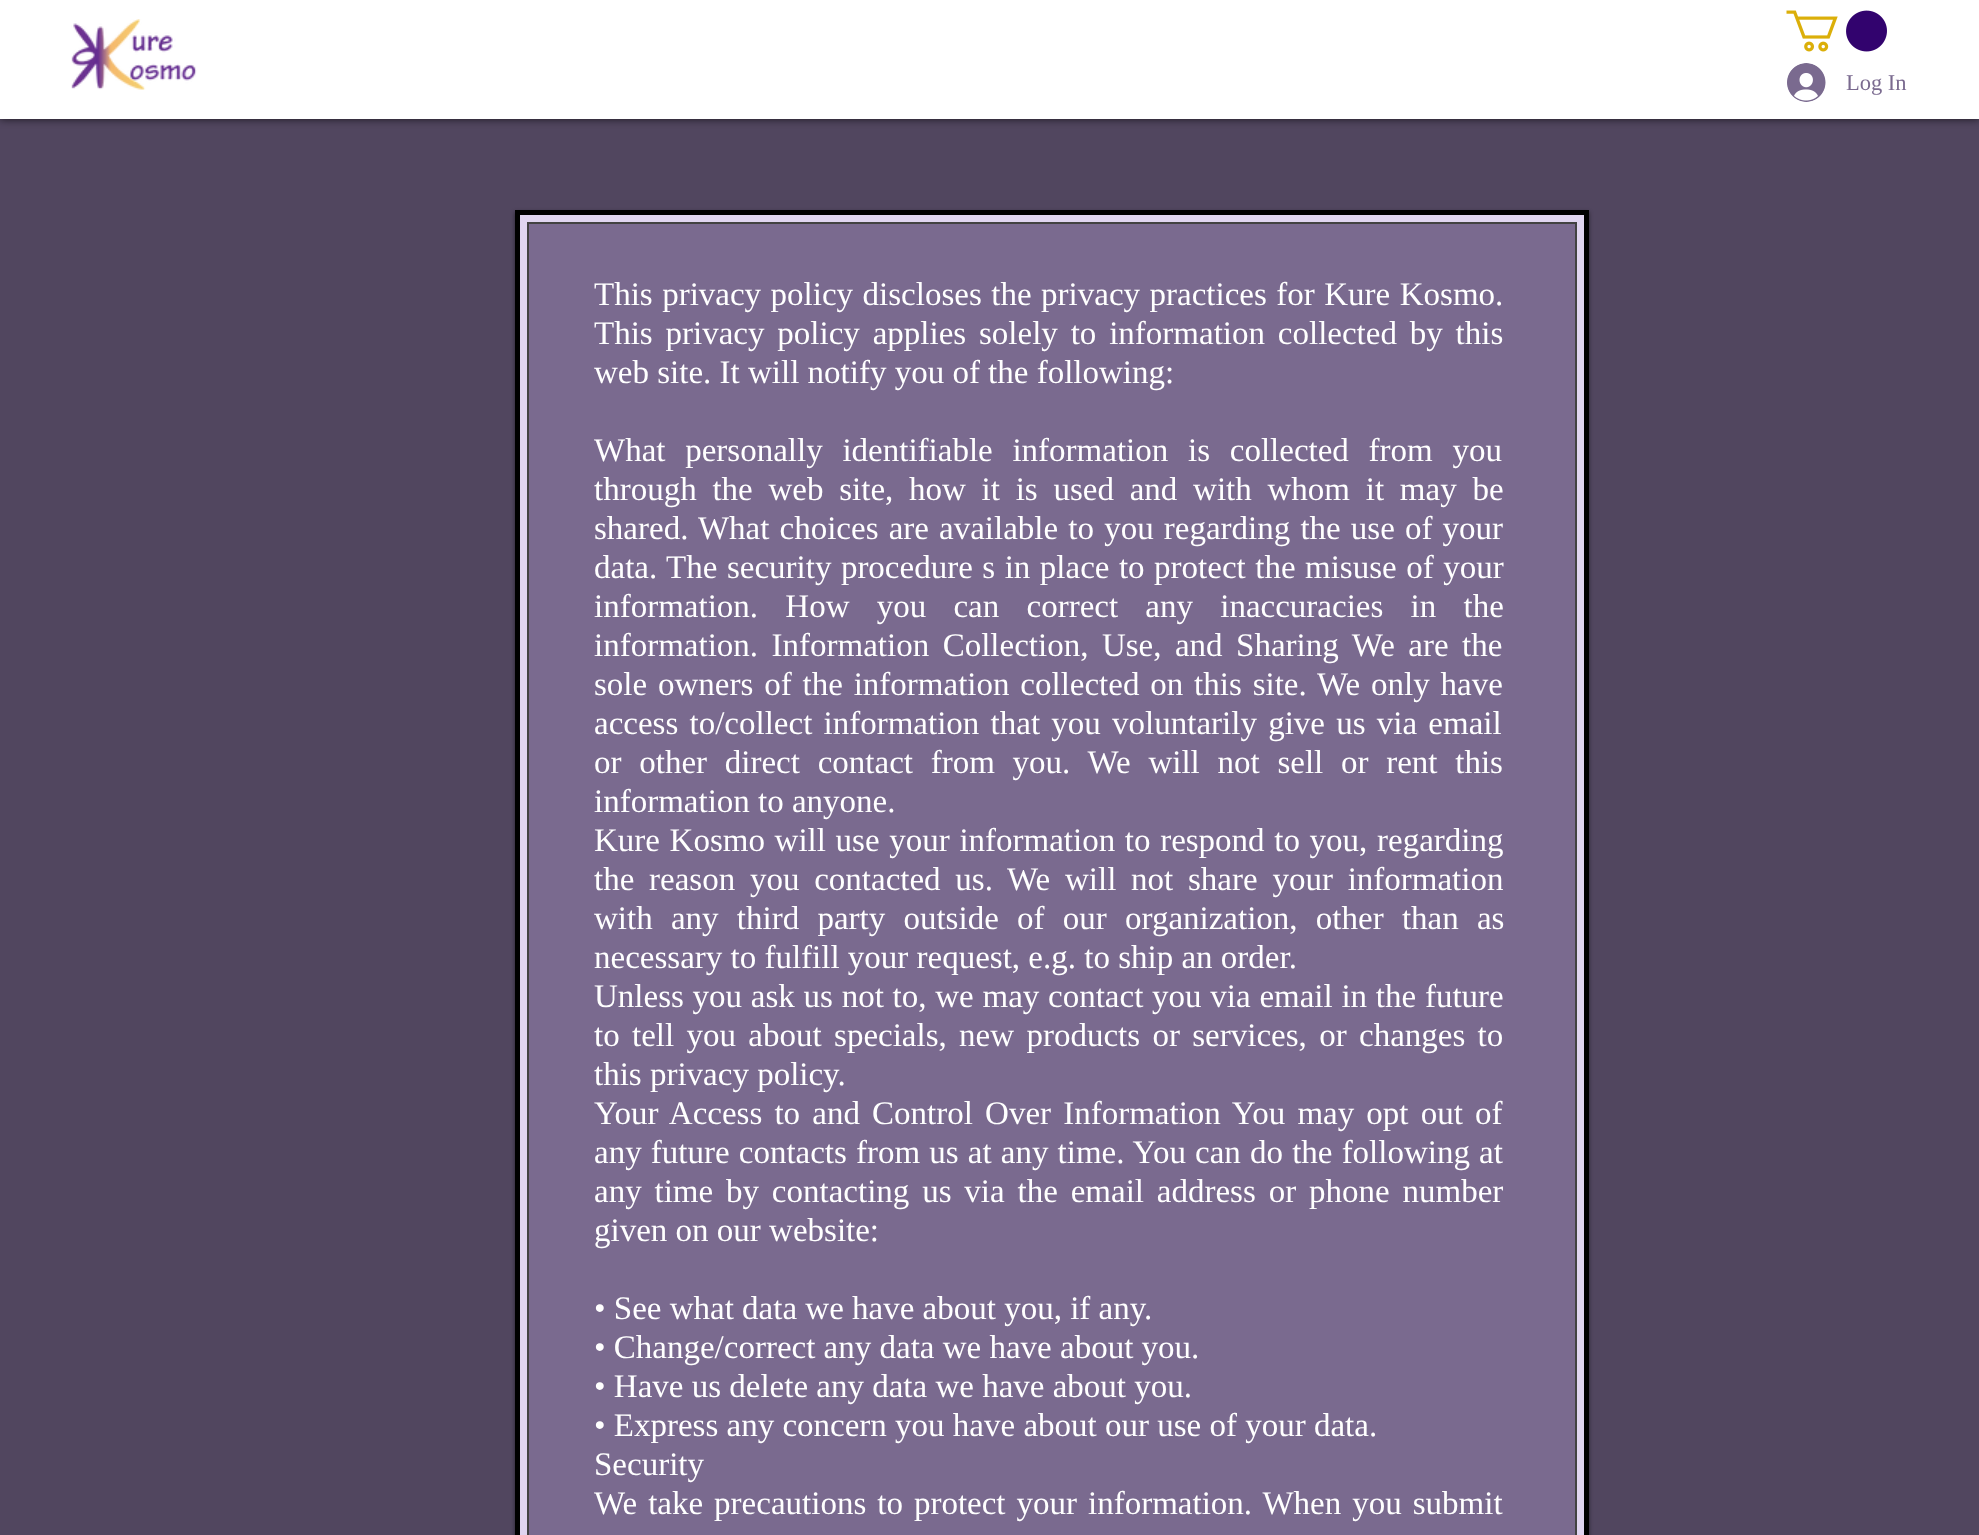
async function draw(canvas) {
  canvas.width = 1979;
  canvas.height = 1535;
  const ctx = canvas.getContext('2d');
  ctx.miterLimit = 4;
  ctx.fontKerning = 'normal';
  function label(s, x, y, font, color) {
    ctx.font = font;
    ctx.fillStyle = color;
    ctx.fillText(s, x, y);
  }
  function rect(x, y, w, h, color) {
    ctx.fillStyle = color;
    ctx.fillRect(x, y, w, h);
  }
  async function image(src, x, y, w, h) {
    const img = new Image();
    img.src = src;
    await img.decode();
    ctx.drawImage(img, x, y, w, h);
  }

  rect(0, 0, 1979, 1535, '#51465f');
  ctx.fillStyle = '#000000b3';
  ctx.filter = 'blur(4px)';
  ctx.beginPath();
  ctx.rect(0, 0, 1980, 119);
  ctx.fill();
  ctx.filter = 'none';
  rect(0, 0, 1979, 119, '#fff');
  await image('assets/img1.png', 71, 19, 126, 71);
  await image('assets/img2.png', 1786, 10, 101, 42);
  await image('assets/img3.png', 1787, 63, 39, 39);
  label('Log In', 1846, 90, '22.5px Liberation Serif', '#7a6a8f');
  ctx.fillStyle = '#00000080';
  ctx.filter = 'blur(2px)';
  ctx.beginPath();
  ctx.rect(515, 212, 1074, 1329);
  ctx.fill();
  ctx.filter = 'none';
  ctx.fillStyle = '#e0d5f0';
  ctx.beginPath();
  ctx.rect(517.5, 212.5, 1069, 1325);
  ctx.fill();
  ctx.strokeStyle = '#000';
  ctx.lineWidth = 5;
  ctx.stroke();
  ctx.fillStyle = '#7a6a8f';
  ctx.beginPath();
  ctx.rect(528, 223, 1048, 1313);
  ctx.fill();
  ctx.strokeStyle = '#424242';
  ctx.lineWidth = 2;
  ctx.stroke();
  ctx.wordSpacing = '1.25px';
  label('This privacy policy discloses the privacy practices for Kure Kosmo.', 594, 305, '33px Liberation Serif', '#fff');
  ctx.wordSpacing = '4.6px';
  label('This privacy policy applies solely to information collected by this', 594, 344, '33px Liberation Serif', '#fff');
  ctx.wordSpacing = '0px';
  label('web site. It will notify you of the following:', 594, 383, '33px Liberation Serif', '#fff');
  ctx.wordSpacing = '11.5px';
  label('What personally identifiable information is collected from you', 594, 461, '33px Liberation Serif', '#fff');
  ctx.wordSpacing = '7.5px';
  label('through the web site, how it is used and with whom it may be', 594, 500, '33px Liberation Serif', '#fff');
  ctx.wordSpacing = '1.9px';
  label('shared. What choices are available to you regarding the use of your', 594, 539, '33px Liberation Serif', '#fff');
  ctx.wordSpacing = '1.25px';
  label('data. The security procedure s in place to protect the misuse of your', 594, 578, '33px Liberation Serif', '#fff');
  ctx.wordSpacing = '19px';
  label('information. How you can correct any inaccuracies in the', 594, 617, '33px Liberation Serif', '#fff');
  ctx.wordSpacing = '5.25px';
  label('information. Information Collection, Use, and Sharing We are the', 594, 656, '33px Liberation Serif', '#fff');
  ctx.wordSpacing = '2.6px';
  label('sole owners of the information collected on this site. We only have', 594, 695, '33px Liberation Serif', '#fff');
  ctx.wordSpacing = '3px';
  label('access to/collect information that you voluntarily give us via email', 594, 734, '33px Liberation Serif', '#fff');
  ctx.wordSpacing = '9.5px';
  label('or other direct contact from you. We will not sell or rent this', 594, 773, '33px Liberation Serif', '#fff');
  ctx.wordSpacing = '0px';
  label('information to anyone.', 594, 812, '33px Liberation Serif', '#fff');
  ctx.wordSpacing = '1.4px';
  label('Kure Kosmo will use your information to respond to you, regarding', 594, 851, '33px Liberation Serif', '#fff');
  ctx.wordSpacing = '6.5px';
  label('the reason you contacted us. We will not share your information', 594, 890, '33px Liberation Serif', '#fff');
  ctx.wordSpacing = '10px';
  label('with any third party outside of our organization, other than as', 594, 929, '33px Liberation Serif', '#fff');
  ctx.wordSpacing = '0px';
  label('necessary to fulfill your request, e.g. to ship an order.', 594, 968, '33px Liberation Serif', '#fff');
  ctx.wordSpacing = '0.5px';
  label('Unless you ask us not to, we may contact you via email in the future', 594, 1007, '33px Liberation Serif', '#fff');
  ctx.wordSpacing = '4.1px';
  label('to tell you about specials, new products or services, or changes to', 594, 1046, '33px Liberation Serif', '#fff');
  ctx.wordSpacing = '0px';
  label('this privacy policy.', 594, 1085, '33px Liberation Serif', '#fff');
  ctx.wordSpacing = '3.9px';
  label('Your Access to and Control Over Information You may opt out of', 594, 1124, '33px Liberation Serif', '#fff');
  ctx.wordSpacing = '0.9px';
  label('any future contacts from us at any time. You can do the following at', 594, 1163, '33px Liberation Serif', '#fff');
  ctx.wordSpacing = '4.6px';
  label('any time by contacting us via the email address or phone number', 594, 1202, '33px Liberation Serif', '#fff');
  ctx.wordSpacing = '0px';
  label('given on our website:', 594, 1241, '33px Liberation Serif', '#fff');
  label('• See what data we have about you, if any.', 594, 1319, '33px Liberation Serif', '#fff');
  label('• Change/correct any data we have about you.', 594, 1358, '33px Liberation Serif', '#fff');
  label('• Have us delete any data we have about you.', 594, 1397, '33px Liberation Serif', '#fff');
  label('• Express any concern you have about our use of your data.', 594, 1436, '33px Liberation Serif', '#fff');
  label('Security', 594, 1475, '33px Liberation Serif', '#fff');
  ctx.wordSpacing = '2.75px';
  label('We take precautions to protect your information. When you submit', 594, 1514, '33px Liberation Serif', '#fff');
}

draw(document.querySelector('canvas'));
